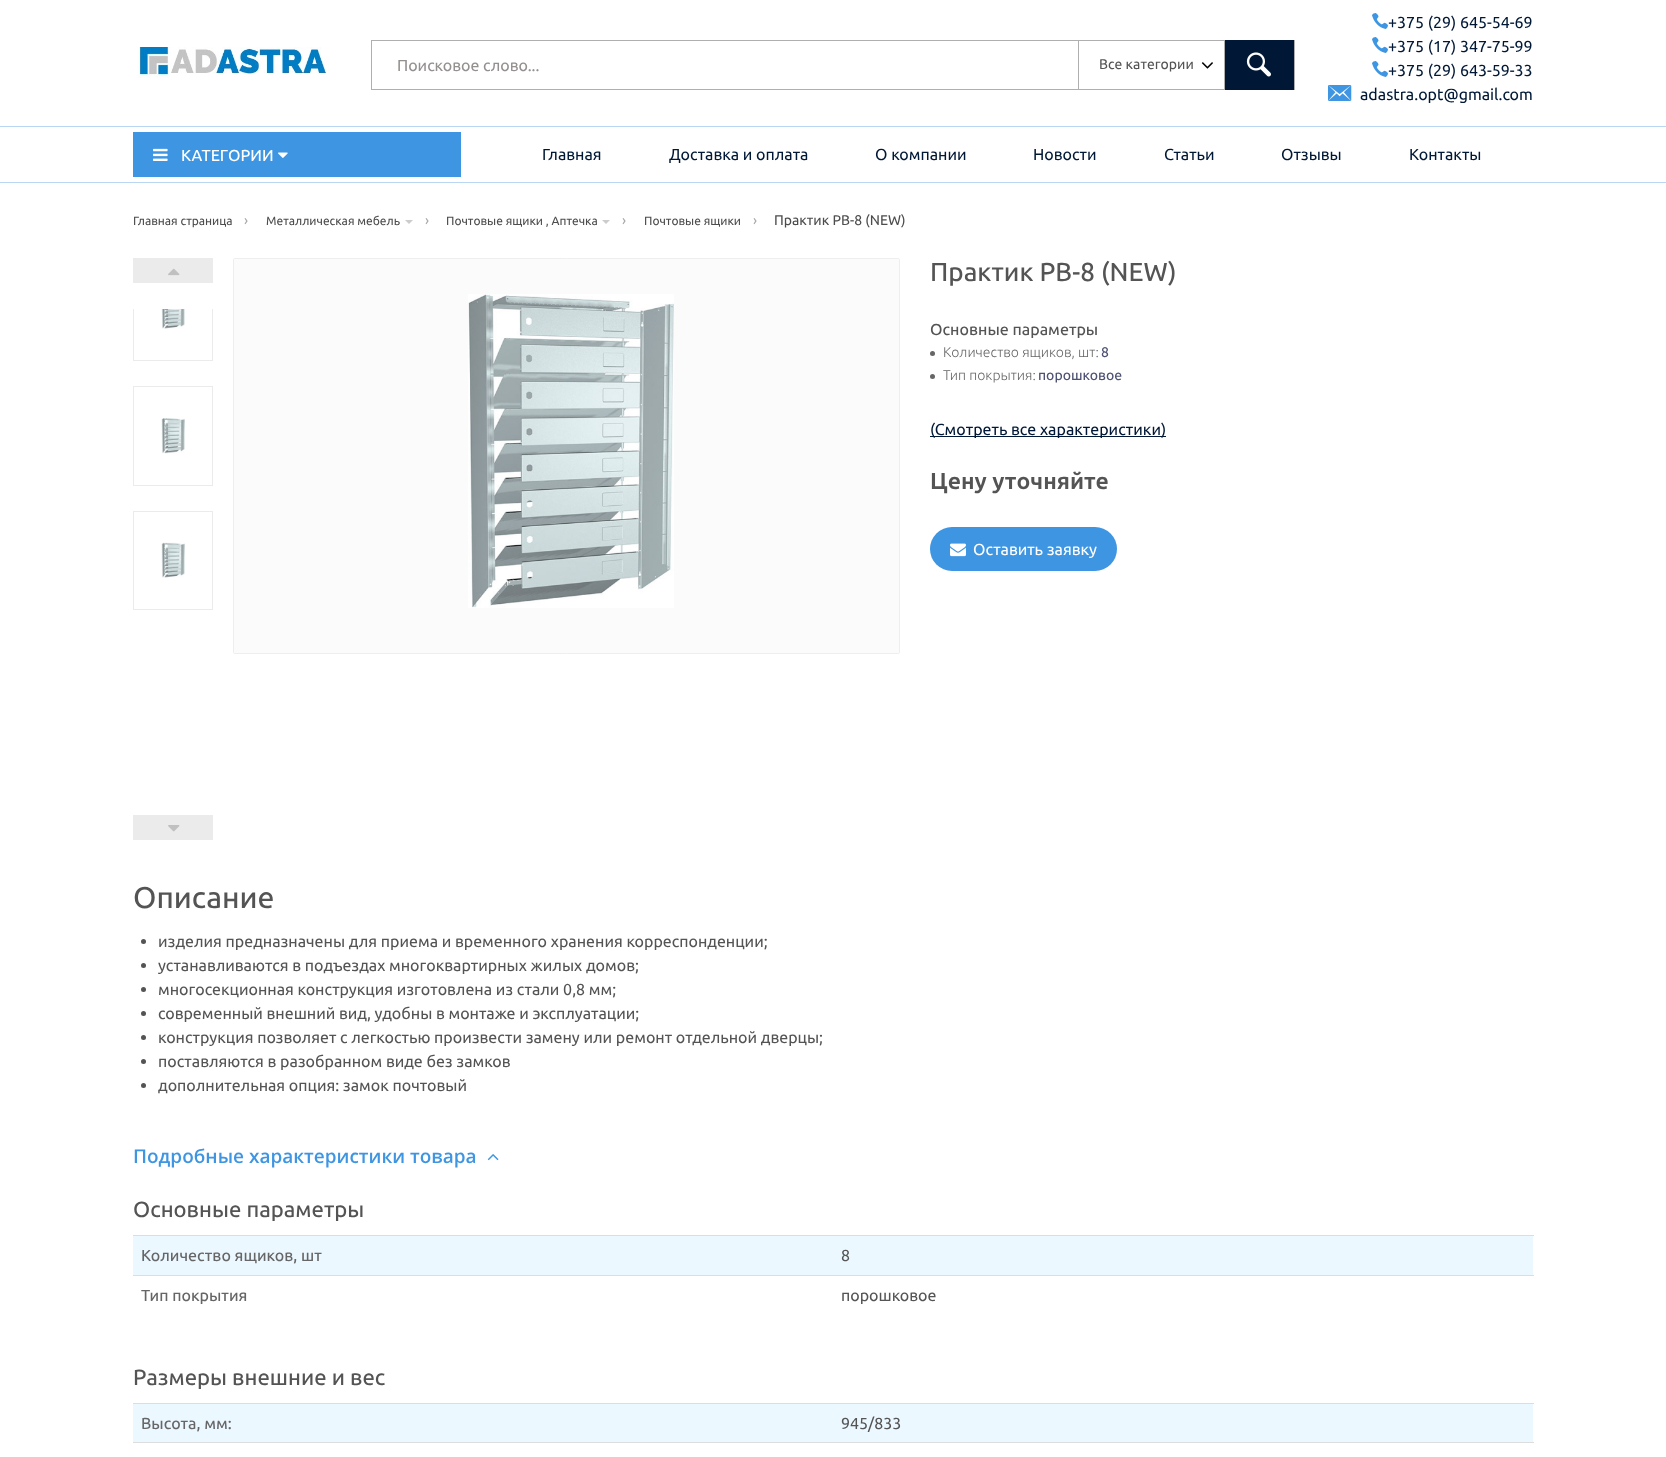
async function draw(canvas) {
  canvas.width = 1666;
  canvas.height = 1457;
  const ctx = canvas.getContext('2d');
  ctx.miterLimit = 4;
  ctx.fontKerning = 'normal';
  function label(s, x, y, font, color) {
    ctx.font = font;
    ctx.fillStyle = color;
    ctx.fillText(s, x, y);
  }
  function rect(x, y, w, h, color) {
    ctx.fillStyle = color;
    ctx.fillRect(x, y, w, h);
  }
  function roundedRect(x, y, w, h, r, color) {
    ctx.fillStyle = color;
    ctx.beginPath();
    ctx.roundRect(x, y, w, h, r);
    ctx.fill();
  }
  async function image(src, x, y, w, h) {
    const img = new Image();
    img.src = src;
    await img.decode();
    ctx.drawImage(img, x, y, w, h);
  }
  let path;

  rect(0, 0, 1666, 1457, '#fff');
  await image('assets/img1.png', 137, 47, 193, 31);
  ctx.strokeStyle = '#b0afaf';
  ctx.strokeRect(371.5, 40.5, 923, 49);
  label('Поисковое слово...', 397, 71, '16px Ubuntu', '#94908f');
  ctx.strokeRect(1078.5, 40.5, 146, 49);
  label('Все категории', 1099, 69, '14px Ubuntu', '#545454');
  await image('assets/img2.png', 1201, 62, 12, 7);
  rect(1225, 40, 69, 50, '#001836');
  await image('assets/img3.png', 1246, 52, 25, 25);
  await image('assets/img4.png', 1372, 13, 16, 16);
  label('+375 (29) 645-54-69', 1388, 28, '16px Ubuntu', '#001836');
  await image('assets/img4.png', 1372, 37, 16, 16);
  label('+375 (17) 347-75-99', 1388, 52, '16px Ubuntu', '#001836');
  await image('assets/img4.png', 1372, 61, 16, 16);
  label('+375 (29) 643-59-33', 1388, 76, '16px Ubuntu', '#001836');
  await image('assets/img5.png', 1328, 85, 24, 16);
  label('adastra.opt@gmail.com', 1360, 100, '16px Ubuntu', '#001836');
  rect(0, 126, 1666, 1, '#b9d7f1');
  rect(0, 182, 1666, 1, '#b9d7f1');
  rect(133, 132, 328, 45, '#3e95e2');
  await image('assets/img6.png', 153, 148, 15, 13);
  label('КАТЕГОРИИ', 181, 161, '500 16px Ubuntu', '#fff');
  await image('assets/img7.png', 278, 152, 10, 6);
  label('Главная', 542, 160, '16px Ubuntu', '#001836');
  label('Доставка и оплата', 669, 160, '16px Ubuntu', '#001836');
  label('О компании', 875, 160, '16px Ubuntu', '#001836');
  label('Новости', 1033, 160, '16px Ubuntu', '#001836');
  label('Статьи', 1164, 160, '16px Ubuntu', '#001836');
  label('Отзывы', 1281, 160, '16px Ubuntu', '#001836');
  label('Контакты', 1409, 160, '16px Ubuntu', '#001836');
  label('Главная страница', 133, 225, '12px Ubuntu', '#4d4d4d');
  label('›', 244, 225, '14px Ubuntu', '#aaa');
  label('Металлическая мебель', 266, 225, '12px Ubuntu', '#4d4d4d');
  ctx.fillStyle = '#ccc';
  path = new Path2D('M405 220H413L409 224Z');
  ctx.fill(path);
  label('›', 425, 225, '14px Ubuntu', '#aaa');
  label('Почтовые ящики , Аптечка', 446, 225, '12px Ubuntu', '#4d4d4d');
  ctx.fillStyle = '#ccc';
  path = new Path2D('M602 220H610L606 224Z');
  ctx.fill(path);
  label('›', 622, 225, '14px Ubuntu', '#aaa');
  label('Почтовые ящики', 644, 225, '12px Ubuntu', '#4d4d4d');
  label('›', 753, 225, '14px Ubuntu', '#aaa');
  label('Практик PB-8 (NEW)', 774, 225, '14px Ubuntu', '#4d4d4d');
  ctx.save();
  ctx.beginPath();
  ctx.rect(133, 309, 80, 480);
  ctx.clip();
  ctx.strokeStyle = '#ebebeb';
  ctx.strokeRect(133.5, 262.5, 79, 98);
  ctx.restore();
  rect(133, 258, 80, 25, '#ebebeb');
  await image('assets/img8.png', 168, 268, 12, 8);
  rect(133, 815, 80, 25, '#ebebeb');
  await image('assets/img9.png', 168, 825, 12, 7);
  await image('assets/img10.png', 161, 309, 24, 20);
  ctx.strokeStyle = '#ebebeb';
  ctx.strokeRect(133.5, 386.5, 79, 99);
  await image('assets/img11.png', 161, 418, 24, 36);
  ctx.strokeRect(133.5, 511.5, 79, 98);
  await image('assets/img12.png', 161, 542, 24, 36);
  ctx.beginPath();
  ctx.roundRect(233.5, 258.5, 666, 395, 1.5);
  ctx.strokeStyle = '#eee';
  ctx.stroke();
  rect(234, 259, 665, 394, '#fbfbfb');
  await image('assets/img13.png', 468, 294, 206, 314);
  label('Практик PB-8 (NEW)', 930, 281, '500 26px Ubuntu', '#545454');
  label('Основные параметры', 930, 335, '500 16px Ubuntu', '#545454');
  ctx.fillStyle = '#666';
  ctx.beginPath();
  ctx.arc(932.5, 353.5, 2.5, 0, 2 * Math.PI);
  ctx.fill();
  label('Количество ящиков, шт:', 943, 357, '300 14px Ubuntu', '#666');
  label('8', 1101, 357, '500 14px Ubuntu', '#4f5373');
  ctx.fillStyle = '#666';
  ctx.beginPath();
  ctx.arc(932.5, 376.5, 2.5, 0, 2 * Math.PI);
  ctx.fill();
  label('Тип покрытия:', 943, 380, '300 14px Ubuntu', '#666');
  label('порошковое', 1038, 380, '500 14px Ubuntu', '#4f5373');
  rect(930, 436, 236, 1, '#001836');
  label('(Смотреть все характеристики)', 930, 435, '16px Ubuntu', '#001836');
  label('Цену уточняйте', 930, 489, 'bold 23px Ubuntu', '#545454');
  roundedRect(930, 527, 187, 44, 22, '#3e95e2');
  await image('assets/img14.png', 950, 543, 16, 14);
  label('Оставить заявку', 973, 555, '16px Ubuntu', '#fff');
  label('Описание', 133, 908, '500 30px Ubuntu', '#545454');
  ctx.beginPath();
  ctx.arc(143.5, 941.5, 2.5, 0, 2 * Math.PI);
  ctx.fill();
  label('изделия предназначены для приема и временного хранения корреспонденции;', 158, 947, '16px Ubuntu', '#545454');
  ctx.beginPath();
  ctx.arc(143.5, 965.5, 2.5, 0, 2 * Math.PI);
  ctx.fill();
  label('устанавливаются в подъездах многоквартирных жилых домов;', 158, 971, '16px Ubuntu', '#545454');
  ctx.beginPath();
  ctx.arc(143.5, 989.5, 2.5, 0, 2 * Math.PI);
  ctx.fill();
  label('многосекционная конструкция изготовлена из стали 0,8 мм;', 158, 995, '16px Ubuntu', '#545454');
  ctx.beginPath();
  ctx.arc(143.5, 1013.5, 2.5, 0, 2 * Math.PI);
  ctx.fill();
  label('современный внешний вид, удобны в монтаже и эксплуатации;', 158, 1019, '16px Ubuntu', '#545454');
  ctx.beginPath();
  ctx.arc(143.5, 1037.5, 2.5, 0, 2 * Math.PI);
  ctx.fill();
  label('конструкция позволяет с легкостью произвести замену или ремонт отдельной дверцы;', 158, 1043, '16px Ubuntu', '#545454');
  ctx.beginPath();
  ctx.arc(143.5, 1061.5, 2.5, 0, 2 * Math.PI);
  ctx.fill();
  label('поставляются в разобранном виде без замков', 158, 1067, '16px Ubuntu', '#545454');
  ctx.beginPath();
  ctx.arc(143.5, 1085.5, 2.5, 0, 2 * Math.PI);
  ctx.fill();
  label('дополнительная опция: замок почтовый', 158, 1091, '16px Ubuntu', '#545454');
  label('Подробные характеристики товара', 133, 1163, '600 19px Open Sans', '#3e95e2');
  await image('assets/img15.png', 487, 1154, 12, 7);
  label('Основные параметры', 133, 1217, '500 22px Ubuntu', '#545454');
  rect(133, 1236, 1400, 39, '#ecf8ff');
  label('Количество ящиков, шт', 141, 1261, '500 16px Ubuntu', '#666');
  rect(133, 1235, 1401, 1, '#ddd');
  label('8', 841, 1261, '16px Ubuntu', '#545454');
  label('Тип покрытия', 141, 1301, '500 16px Ubuntu', '#666');
  rect(133, 1275, 1401, 1, '#ddd');
  label('порошковое', 841, 1301, '16px Ubuntu', '#545454');
  label('Размеры внешние и вес', 133, 1385, '500 22px Ubuntu', '#545454');
  rect(133, 1404, 1400, 38, '#ecf8ff');
  label('Высота, мм:', 141, 1429, '500 16px Ubuntu', '#666');
  rect(133, 1403, 1401, 1, '#ddd');
  label('945/833', 841, 1429, '16px Ubuntu', '#545454');
  rect(133, 1442, 1401, 1, '#ddd');
}

draw(document.querySelector('canvas'));
